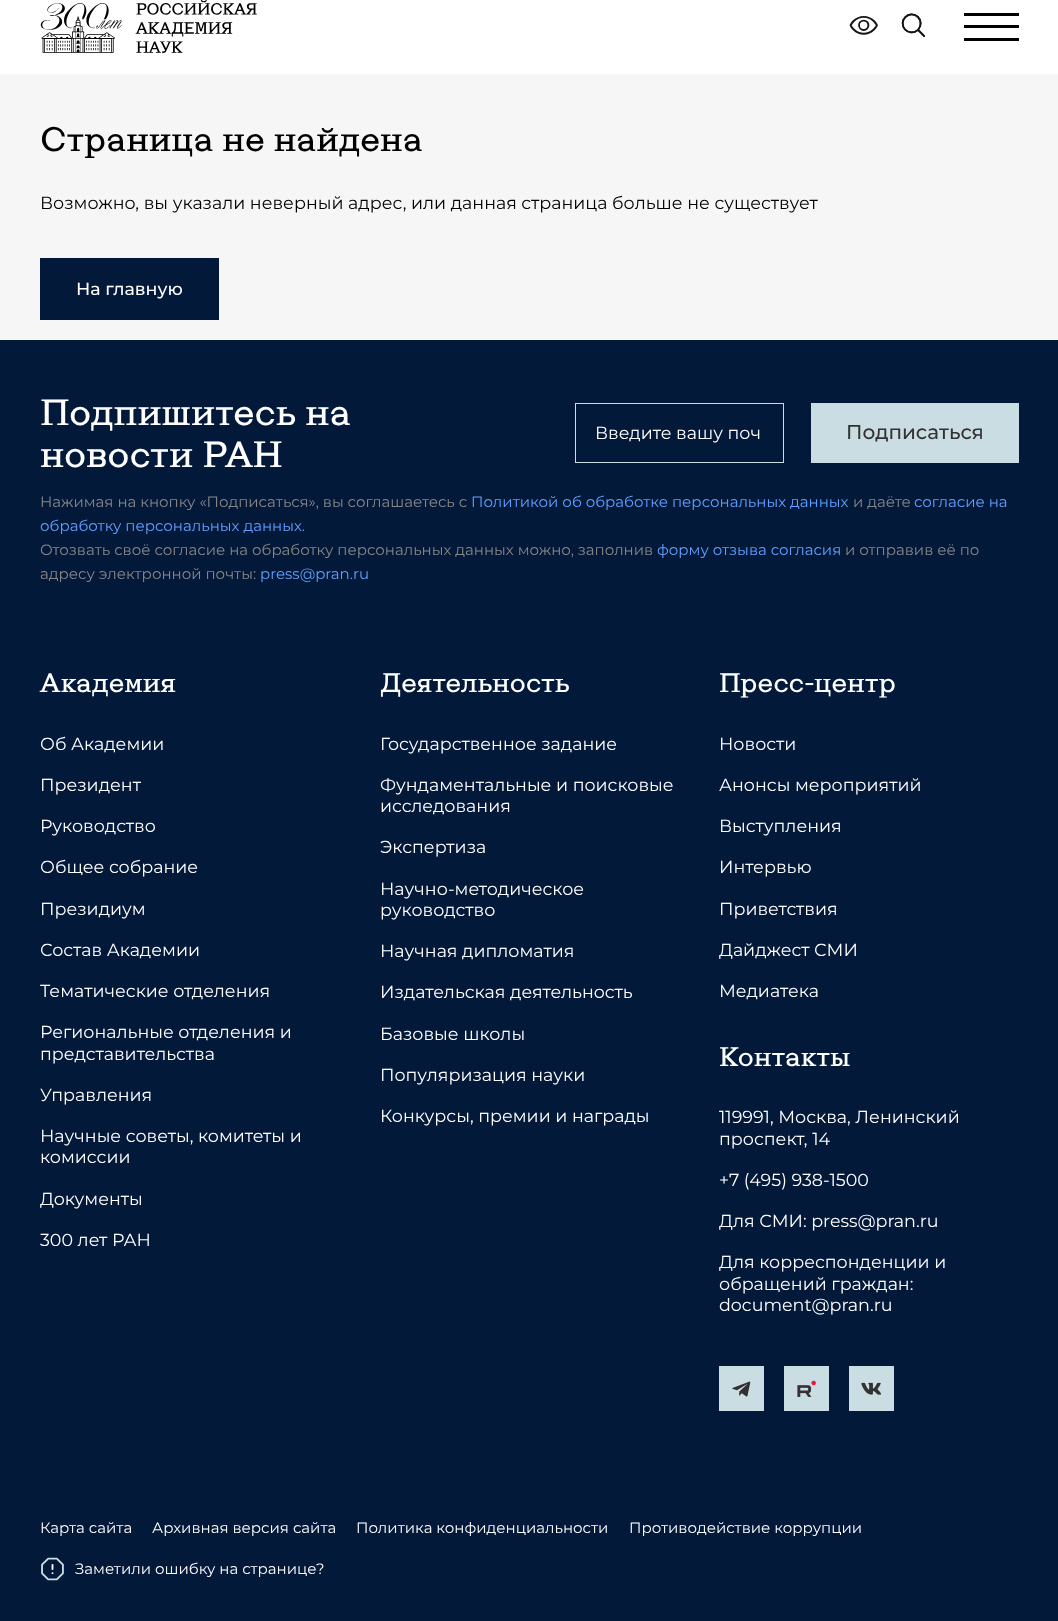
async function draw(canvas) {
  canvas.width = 1058;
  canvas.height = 1621;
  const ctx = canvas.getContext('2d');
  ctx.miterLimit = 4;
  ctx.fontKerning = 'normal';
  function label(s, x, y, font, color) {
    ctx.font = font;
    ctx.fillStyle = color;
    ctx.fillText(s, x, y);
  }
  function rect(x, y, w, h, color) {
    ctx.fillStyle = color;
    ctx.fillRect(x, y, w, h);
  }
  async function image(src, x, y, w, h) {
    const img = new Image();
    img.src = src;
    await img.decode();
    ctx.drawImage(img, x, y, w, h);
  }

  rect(0, 0, 1058, 1621, '#f6f6f6');
  rect(0, 0, 1058, 74, '#fff');
  await image('assets/img1.png', 40, 0, 217, 53);
  await image('assets/img2.png', 849, 16, 29, 19);
  await image('assets/img3.png', 901, 13, 24, 24);
  rect(964, 13, 55, 3, '#000');
  rect(964, 25, 55, 3, '#000');
  rect(964, 38, 55, 3, '#000');
  label('Страница не найдена', 40, 151, '500 35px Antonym', '#000');
  label('Возможно, вы указали неверный адрес, или данная страница больше не существует', 40, 209, '17.5px Montserrat', '#000');
  rect(40, 258, 179, 62, '#03193a');
  label('На главную', 76, 295, '500 17.5px Montserrat', '#fff');
  rect(0, 340, 1058, 1281, '#03193a');
  label('Подпишитесь на', 40, 425, '500 37.5px Antonym', '#fff');
  label('новости РАН', 40, 467, '500 37.5px Antonym', '#fff');
  ctx.strokeStyle = '#cadde3';
  ctx.strokeRect(575.5, 403.5, 208, 59);
  label('Введите вашу поч', 595, 439, '17.5px Montserrat', '#fff');
  rect(811, 403, 208, 60, '#cadde3');
  label('Подписаться', 846, 439, '500 20px Montserrat', '#333132');
  label('Нажимая на кнопку «Подписаться», вы соглашаетесь с', 40, 507, '15px Montserrat', '#878787');
  label('Политикой об обработке персональных данных', 471, 507, '15px Montserrat', '#61a0ff');
  label('и даёте', 853, 507, '15px Montserrat', '#878787');
  label('согласие на', 914, 507, '15px Montserrat', '#61a0ff');
  label('обработку персональных данных.', 40, 531, '15px Montserrat', '#61a0ff');
  label('Отозвать своё согласие на обработку персональных данных можно, заполнив', 40, 555, '15px Montserrat', '#878787');
  label('форму отзыва согласия', 657, 555, '15px Montserrat', '#61a0ff');
  label('и отправив её по', 845, 555, '15px Montserrat', '#878787');
  label('адресу электронной почты:', 40, 579, '15px Montserrat', '#878787');
  label('press@pran.ru', 260, 579, '15px Montserrat', '#61a0ff');
  label('Академия', 40, 692, '500 27.5px Antonym', '#fff');
  label('Об Академии', 40, 750, '17.5px Montserrat', '#fff');
  label('Президент', 40, 791, '17.5px Montserrat', '#fff');
  label('Руководство', 40, 832, '17.5px Montserrat', '#fff');
  label('Общее собрание', 40, 873, '17.5px Montserrat', '#fff');
  label('Президиум', 40, 915, '17.5px Montserrat', '#fff');
  label('Состав Академии', 40, 956, '17.5px Montserrat', '#fff');
  label('Тематические отделения', 40, 997, '17.5px Montserrat', '#fff');
  label('Региональные отделения и', 40, 1038, '17.5px Montserrat', '#fff');
  label('представительства', 40, 1060, '17.5px Montserrat', '#fff');
  label('Управления', 40, 1101, '17.5px Montserrat', '#fff');
  label('Научные советы, комитеты и', 40, 1142, '17.5px Montserrat', '#fff');
  label('комиссии', 40, 1163, '17.5px Montserrat', '#fff');
  label('Документы', 40, 1205, '17.5px Montserrat', '#fff');
  label('300 лет РАН', 40, 1246, '17.5px Montserrat', '#fff');
  label('Деятельность', 380, 692, '500 27.5px Antonym', '#fff');
  label('Государственное задание', 380, 750, '17.5px Montserrat', '#fff');
  label('Фундаментальные и поисковые', 380, 791, '17.5px Montserrat', '#fff');
  label('исследования', 380, 812, '17.5px Montserrat', '#fff');
  label('Экспертиза', 380, 853, '17.5px Montserrat', '#fff');
  label('Научно-методическое', 380, 895, '17.5px Montserrat', '#fff');
  label('руководство', 380, 916, '17.5px Montserrat', '#fff');
  label('Научная дипломатия', 380, 957, '17.5px Montserrat', '#fff');
  label('Издательская деятельность', 380, 998, '17.5px Montserrat', '#fff');
  label('Базовые школы', 380, 1040, '17.5px Montserrat', '#fff');
  label('Популяризация науки', 380, 1081, '17.5px Montserrat', '#fff');
  label('Конкурсы, премии и награды', 380, 1122, '17.5px Montserrat', '#fff');
  label('Пресс-центр', 719, 692, '500 27.5px Antonym', '#fff');
  label('Новости', 719, 750, '17.5px Montserrat', '#fff');
  label('Анонсы мероприятий', 719, 791, '17.5px Montserrat', '#fff');
  label('Выступления', 719, 832, '17.5px Montserrat', '#fff');
  label('Интервью', 719, 873, '17.5px Montserrat', '#fff');
  label('Приветствия', 719, 915, '17.5px Montserrat', '#fff');
  label('Дайджест СМИ', 719, 956, '17.5px Montserrat', '#fff');
  label('Медиатека', 719, 997, '17.5px Montserrat', '#fff');
  label('Контакты', 719, 1066, '500 27.5px Antonym', '#fff');
  label('119991, Москва, Ленинский', 719, 1123, '17.5px Montserrat', '#fff');
  label('проспект, 14', 719, 1145, '17.5px Montserrat', '#fff');
  label('+7 (495) 938-1500', 719, 1186, '17.5px Montserrat', '#fff');
  label('Для СМИ: press@pran.ru', 719, 1227, '17.5px Montserrat', '#fff');
  label('Для корреспонденции и', 719, 1268, '17.5px Montserrat', '#fff');
  label('обращений граждан:', 719, 1290, '17.5px Montserrat', '#fff');
  label('document@pran.ru', 719, 1311, '17.5px Montserrat', '#fff');
  rect(719, 1366, 45, 45, '#cadde3');
  await image('assets/img4.png', 732, 1381, 19, 16);
  rect(784, 1366, 45, 45, '#cadde3');
  await image('assets/img5.png', 797, 1380, 19, 17);
  rect(849, 1366, 45, 45, '#cadde3');
  await image('assets/img6.png', 861, 1382, 20, 13);
  label('Карта сайта', 40, 1533, '15px Montserrat', '#fff');
  label('Архивная версия сайта', 152, 1533, '15px Montserrat', '#fff');
  label('Политика конфиденциальности', 356, 1533, '15px Montserrat', '#fff');
  label('Противодействие коррупции', 629, 1533, '15px Montserrat', '#fff');
  await image('assets/img7.png', 41, 1557, 23, 24);
  label('Заметили ошибку на странице?', 75, 1574, '15px Montserrat', '#fff');
}

draw(document.querySelector('canvas'));
